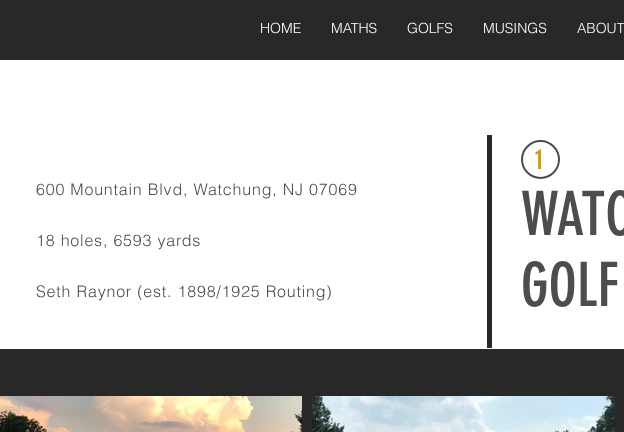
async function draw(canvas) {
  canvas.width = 624;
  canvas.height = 432;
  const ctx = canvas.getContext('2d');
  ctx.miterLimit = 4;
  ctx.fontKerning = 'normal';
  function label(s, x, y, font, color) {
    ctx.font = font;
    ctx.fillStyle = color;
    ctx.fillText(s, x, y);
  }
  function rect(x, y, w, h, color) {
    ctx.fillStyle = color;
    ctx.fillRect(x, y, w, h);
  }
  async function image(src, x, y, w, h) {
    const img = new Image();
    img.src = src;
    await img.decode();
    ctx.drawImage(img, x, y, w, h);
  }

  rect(0, 0, 624, 432, '#fff');
  rect(0, 0, 624, 60, '#282828');
  label('HOME', 260, 33, '300 14px helvetica', '#fff');
  label('MATHS', 331, 33, '300 14px helvetica', '#fff');
  label('GOLFS', 407, 33, '300 14px helvetica', '#fff');
  label('MUSINGS', 483, 33, '300 14px helvetica', '#fff');
  label('ABOUT', 577, 33, '300 14px helvetica', '#fff');
  rect(487, 135, 5, 213, '#282828');
  ctx.beginPath();
  ctx.arc(540.5, 159.5, 18.5, 0, 2 * Math.PI);
  ctx.strokeStyle = '#4d4d4d';
  ctx.lineWidth = 2;
  ctx.stroke();
  ctx.letterSpacing = '1px';
  label('1', 535, 169, '28px "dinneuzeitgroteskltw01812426"', '#c99a22');
  ctx.letterSpacing = '0.8px';
  label('600 Mountain Blvd, Watchung, NJ 07069', 36, 195, '300 16px helvetica', '#4d4d4d');
  label('18 holes, 6593 yards', 36, 246, '300 16px helvetica', '#4d4d4d');
  label('Seth Raynor (est. 1898/1925 Routing)', 36, 297, '300 16px helvetica', '#4d4d4d');
  ctx.letterSpacing = '0px';
  label('WATC', 521, 235, '60px "dinneuzeitgroteskltw01812426"', '#4d4d4d');
  label('GOLF', 521, 306, '60px "dinneuzeitgroteskltw01812426"', '#4d4d4d');
  rect(0, 349, 624, 83, '#282828');
  await image('assets/img1.png', 0, 396, 302, 36);
  await image('assets/img2.png', 312, 396, 303, 36);
}

draw(document.querySelector('canvas'));
